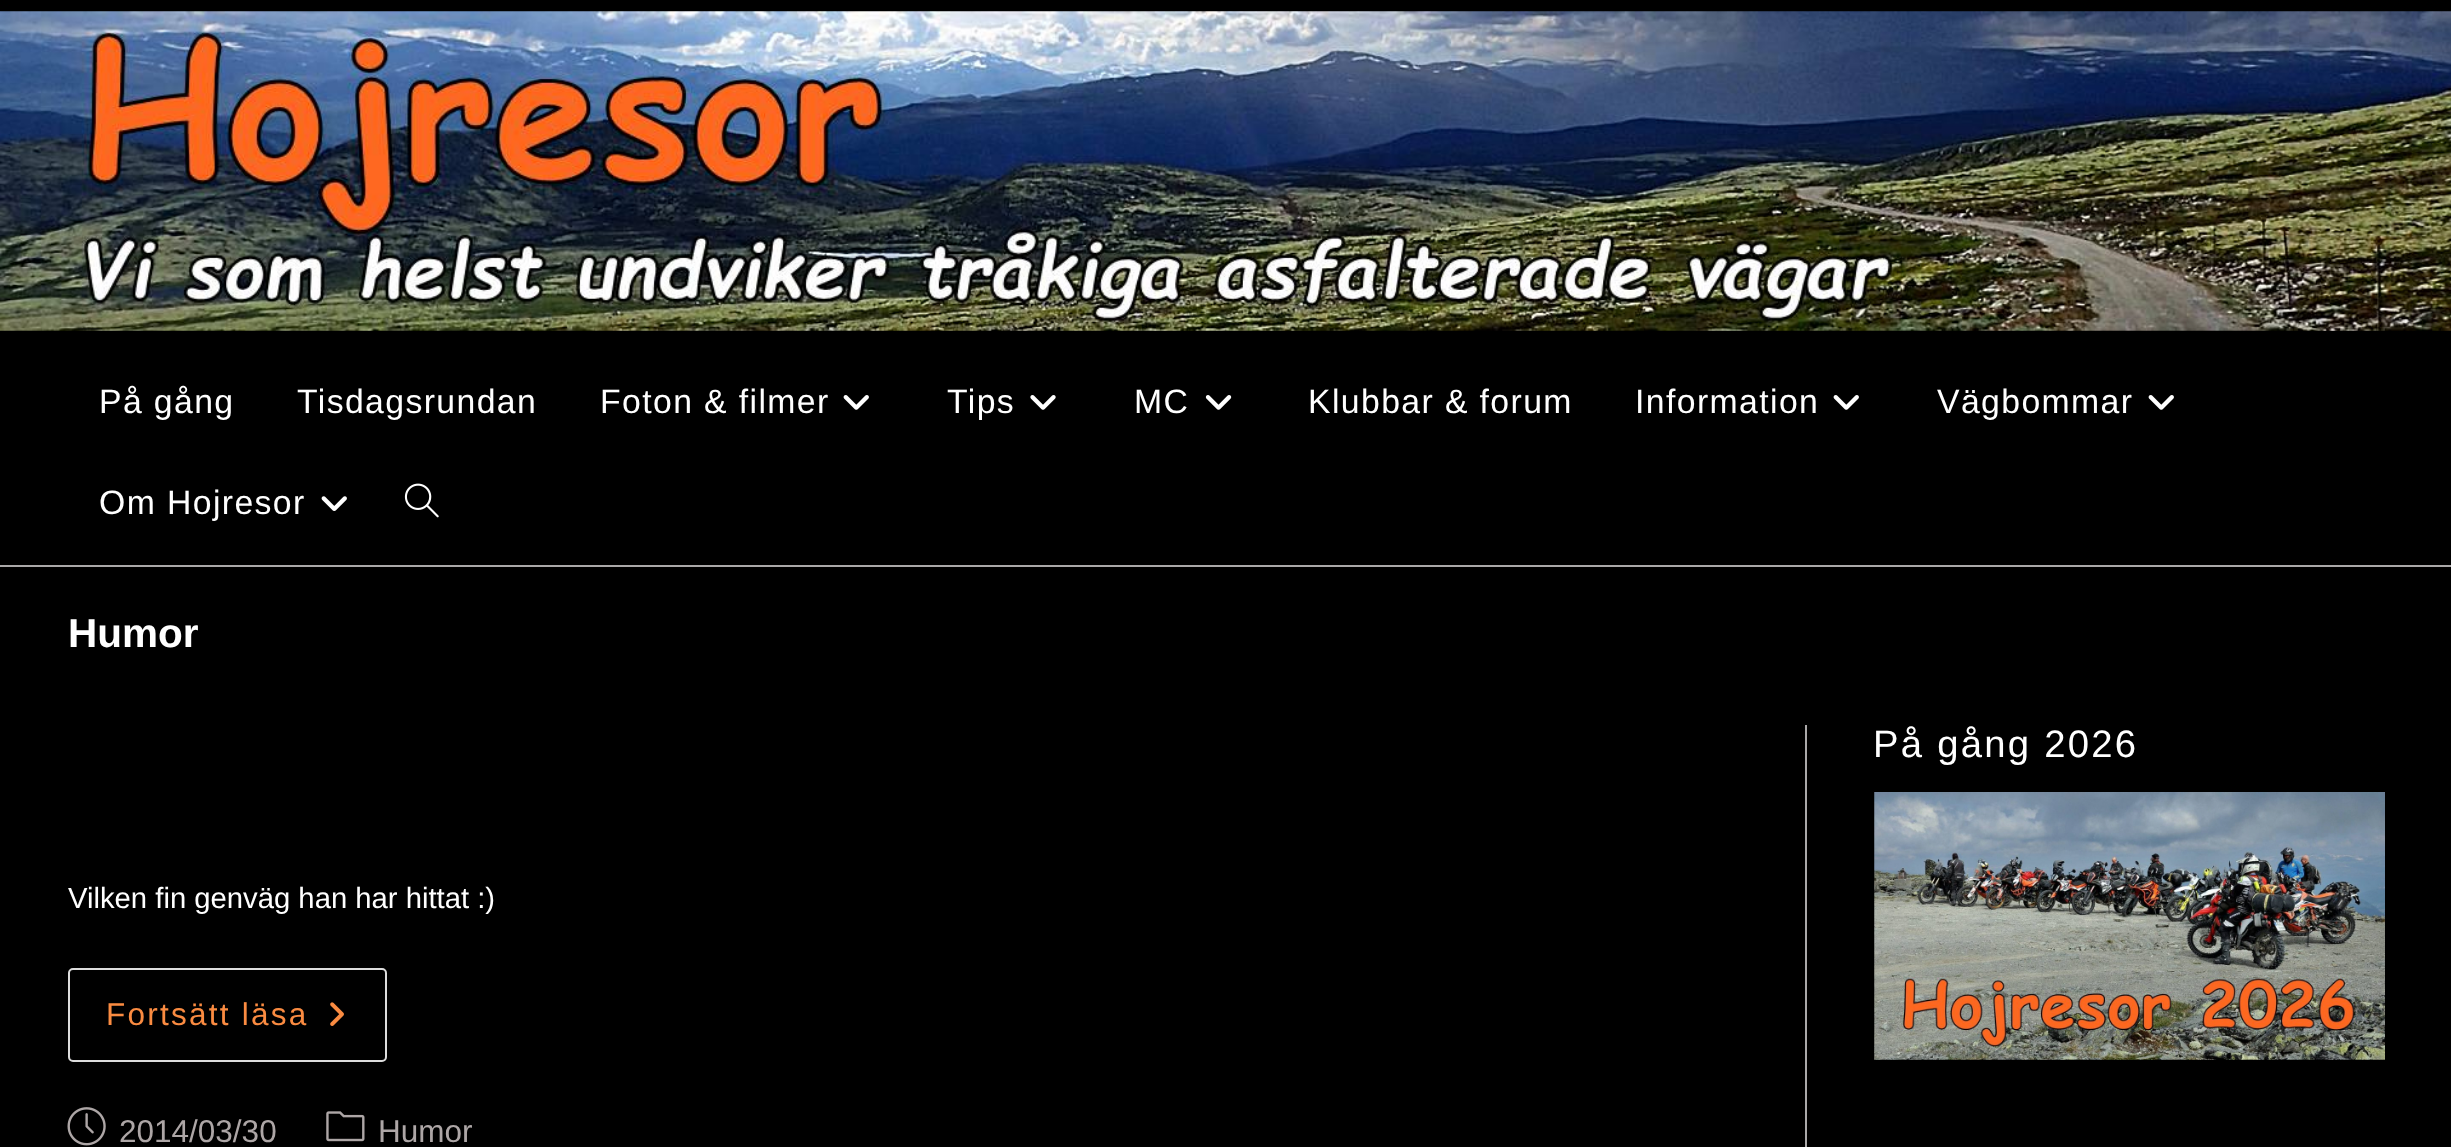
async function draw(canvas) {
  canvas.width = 2451;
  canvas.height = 1147;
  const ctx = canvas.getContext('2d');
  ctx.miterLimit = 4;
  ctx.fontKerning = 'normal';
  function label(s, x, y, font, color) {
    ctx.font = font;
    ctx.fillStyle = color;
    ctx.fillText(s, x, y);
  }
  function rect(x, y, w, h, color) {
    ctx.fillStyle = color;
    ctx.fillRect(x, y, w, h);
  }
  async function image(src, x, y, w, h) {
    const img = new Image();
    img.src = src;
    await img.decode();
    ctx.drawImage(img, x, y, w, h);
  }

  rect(0, 0, 2451, 1147, '#000');
  await image('assets/img1.png', 0, 11, 2451, 320);
  rect(0, 565, 2451, 2, '#aaa8a8');
  ctx.letterSpacing = '1.4px';
  label('På gång', 99, 413, '33.75px Liberation Sans', '#fff');
  label('Tisdagsrundan', 297, 413, '33.75px Liberation Sans', '#fff');
  label('Foton & filmer', 600, 413, '33.75px Liberation Sans', '#fff');
  await image('assets/img2.png', 843, 395, 26, 15);
  label('Tips', 947, 413, '33.75px Liberation Sans', '#fff');
  await image('assets/img3.png', 1030, 395, 26, 15);
  label('MC', 1134, 413, '33.75px Liberation Sans', '#fff');
  await image('assets/img4.png', 1205, 395, 27, 15);
  label('Klubbar & forum', 1308, 413, '33.75px Liberation Sans', '#fff');
  label('Information', 1635, 413, '33.75px Liberation Sans', '#fff');
  await image('assets/img2.png', 1833, 395, 26, 15);
  label('Vägbommar', 1937, 413, '33.75px Liberation Sans', '#fff');
  await image('assets/img2.png', 2148, 395, 26, 15);
  label('Om Hojresor', 99, 514, '33.75px Liberation Sans', '#fff');
  await image('assets/img5.png', 321, 496, 26, 15);
  await image('assets/img6.png', 404, 483, 35, 35);
  ctx.letterSpacing = '0px';
  label('Humor', 68, 647, 'bold 40.5px Liberation Sans', '#fff');
  ctx.letterSpacing = '2.25px';
  label('På gång 2026', 1873, 757, '38.25px Liberation Sans', '#fff');
  await image('assets/img7.png', 1874, 792, 511, 268);
  rect(1805, 725, 2, 422, '#aaa8a8');
  ctx.letterSpacing = '0px';
  label('Vilken fin genväg han har hittat :)', 68, 908, '29.25px Liberation Sans', '#fff');
  ctx.beginPath();
  ctx.roundRect(69, 969, 317, 92, 4);
  ctx.strokeStyle = '#ddd';
  ctx.lineWidth = 2;
  ctx.stroke();
  ctx.letterSpacing = '2.25px';
  label('Fortsätt läsa', 106, 1025, '31.5px Liberation Sans', '#fa8b41');
  await image('assets/img8.png', 330, 1002, 14, 24);
  await image('assets/img9.png', 67, 1107, 39, 39);
  ctx.letterSpacing = '0px';
  label('2014/03/30', 119, 1142, '31.5px Liberation Sans', '#ada6a6');
  await image('assets/img10.png', 326, 1111, 39, 31);
  label('Humor', 378, 1142, '31.5px Liberation Sans', '#ada6a6');
}

draw(document.querySelector('canvas'));
